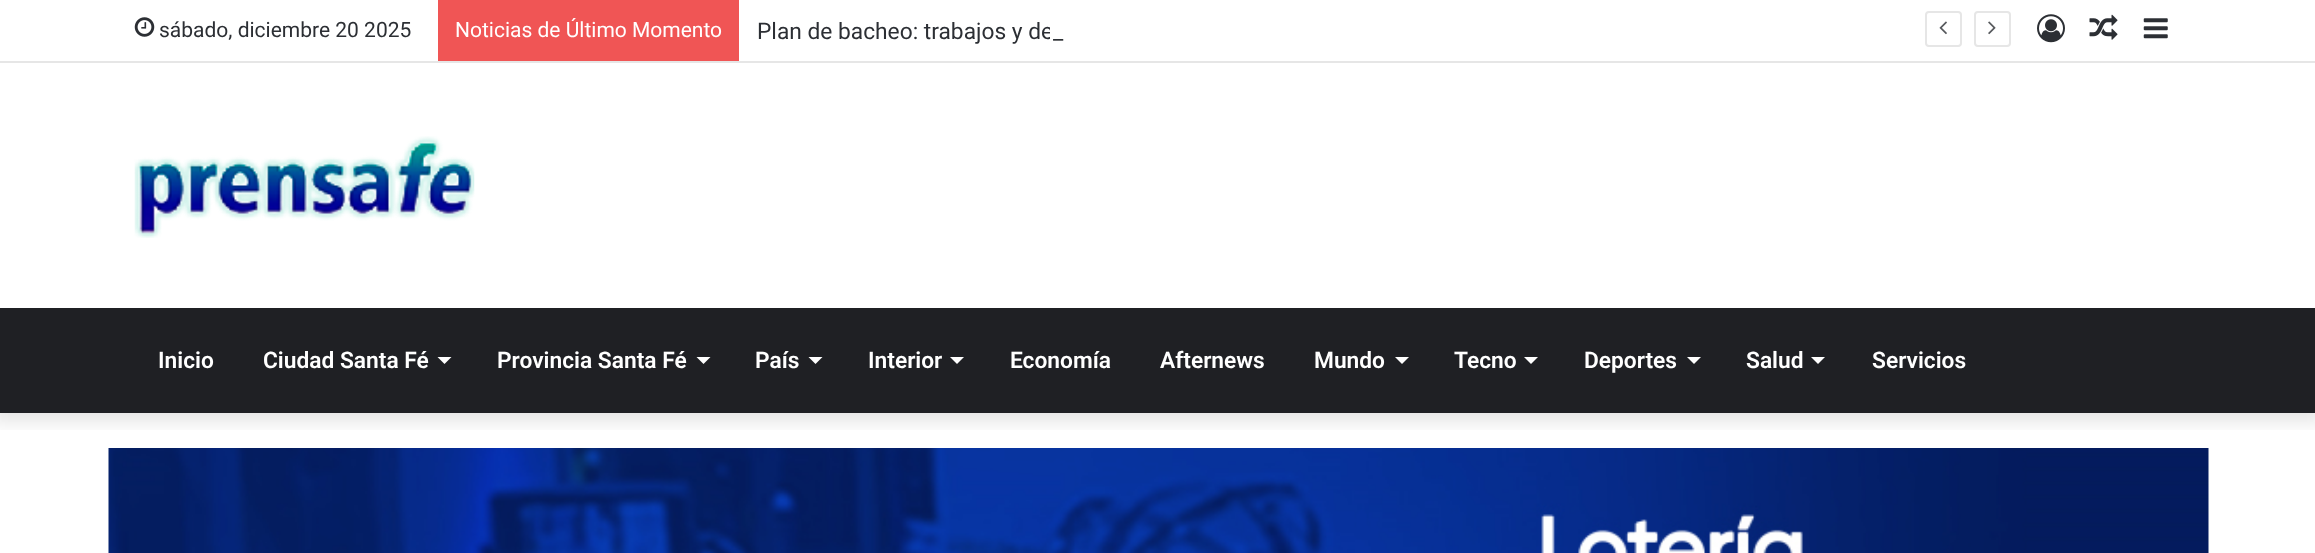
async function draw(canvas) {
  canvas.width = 2315;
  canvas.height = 553;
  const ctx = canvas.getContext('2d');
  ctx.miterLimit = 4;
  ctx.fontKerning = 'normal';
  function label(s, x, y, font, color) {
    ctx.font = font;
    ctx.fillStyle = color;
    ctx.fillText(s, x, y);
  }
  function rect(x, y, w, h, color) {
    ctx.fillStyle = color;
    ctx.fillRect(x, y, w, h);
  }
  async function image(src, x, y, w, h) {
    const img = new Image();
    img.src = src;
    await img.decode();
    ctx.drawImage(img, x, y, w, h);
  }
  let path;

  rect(0, 0, 2315, 553, '#fff');
  await image('assets/img8.png', 108, 448, 2101, 105);
  ctx.save();
  ctx.beginPath();
  ctx.rect(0, 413, 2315, 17);
  ctx.clip();
  ctx.fillStyle = '#0000001a';
  ctx.filter = 'blur(9px)';
  ctx.beginPath();
  ctx.rect(-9, -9, 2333, 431);
  ctx.fill();
  ctx.filter = 'none';
  ctx.restore();
  rect(0, 61, 2315, 2, '#e6e6e6');
  await image('assets/img1.png', 134, 17, 21, 20);
  label('sábado, diciembre 20 2025', 159, 37, '21px Roboto', '#2c2f34');
  rect(438, 0, 301, 61, '#f05555');
  label('Noticias de Último Momento', 455, 37, '21px Roboto', '#fff');
  label('Plan de bacheo: trabajos y de', 757, 39, '22.75px Roboto', '#2c2f34');
  rect(1050, 27, 3, 12, '#fff');
  label('_', 1053, 39, '22.75px Roboto', '#2c2f34');
  ctx.beginPath();
  ctx.roundRect(1926, 12, 35, 34, 3);
  ctx.strokeStyle = '#e6e6e6';
  ctx.lineWidth = 2;
  ctx.stroke();
  await image('assets/img2.png', 1939, 21, 8, 14);
  ctx.beginPath();
  ctx.roundRect(1975, 12, 35, 34, 3);
  ctx.stroke();
  await image('assets/img3.png', 1988, 21, 8, 14);
  await image('assets/img4.png', 2037, 14, 28, 29);
  await image('assets/img5.png', 2089, 14, 29, 26);
  await image('assets/img6.png', 2143, 18, 25, 21);
  await image('assets/img7.png', 134, 136, 341, 102);
  rect(0, 308, 2315, 105, '#1f2024');
  label('Inicio', 158, 368, '600 22.75px Roboto', '#fff');
  label('Ciudad Santa Fé', 263, 368, '600 22.75px Roboto', '#fff');
  path = new Path2D('M437.5 357H451.5L444.5 364Z');
  ctx.fill(path);
  label('Provincia Santa Fé', 497, 368, '600 22.75px Roboto', '#fff');
  path = new Path2D('M696.5 357H710.5L703.5 364Z');
  ctx.fill(path);
  label('País', 755, 368, '600 22.75px Roboto', '#fff');
  path = new Path2D('M808.5 357H822.5L815.5 364Z');
  ctx.fill(path);
  label('Interior', 868, 368, '600 22.75px Roboto', '#fff');
  path = new Path2D('M950 357H964L957 364Z');
  ctx.fill(path);
  label('Economía', 1010, 368, '600 22.75px Roboto', '#fff');
  label('Afternews', 1160, 368, '600 22.75px Roboto', '#fff');
  label('Mundo', 1314, 368, '600 22.75px Roboto', '#fff');
  path = new Path2D('M1395 357H1409L1402 364Z');
  ctx.fill(path);
  label('Tecno', 1454, 368, '600 22.75px Roboto', '#fff');
  path = new Path2D('M1524 357H1538L1531 364Z');
  ctx.fill(path);
  label('Deportes', 1584, 368, '600 22.75px Roboto', '#fff');
  path = new Path2D('M1687 357H1701L1694 364Z');
  ctx.fill(path);
  label('Salud', 1746, 368, '600 22.75px Roboto', '#fff');
  path = new Path2D('M1811 357H1825L1818 364Z');
  ctx.fill(path);
  label('Servicios', 1872, 368, '600 22.75px Roboto', '#fff');
}

draw(document.querySelector('canvas'));
